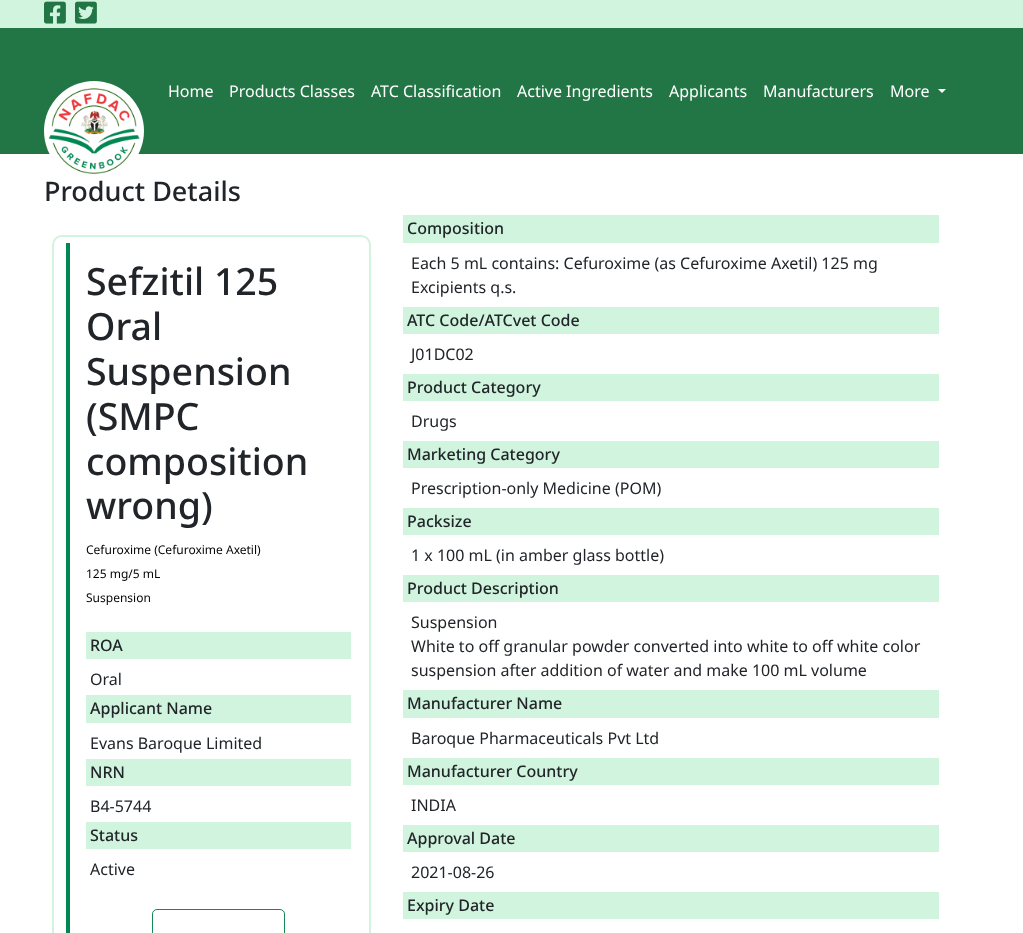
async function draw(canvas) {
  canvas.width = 1023;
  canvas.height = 933;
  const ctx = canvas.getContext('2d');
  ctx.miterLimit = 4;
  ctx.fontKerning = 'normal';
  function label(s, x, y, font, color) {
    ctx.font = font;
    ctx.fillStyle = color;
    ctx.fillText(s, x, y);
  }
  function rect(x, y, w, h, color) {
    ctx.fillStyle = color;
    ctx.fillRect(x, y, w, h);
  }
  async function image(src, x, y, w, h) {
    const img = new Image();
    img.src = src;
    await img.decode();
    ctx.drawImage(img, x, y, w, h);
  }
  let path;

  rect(0, 0, 1023, 933, '#fff');
  rect(0, 0, 1023, 28, '#d0f4dd');
  await image('assets/img1.png', 44, 1, 22, 23);
  await image('assets/img2.png', 75, 1, 22, 23);
  rect(0, 28, 1023, 126, '#227645');
  label('Product Details', 44, 201, '500 27px Noto Sans', '#212529');
  await image('assets/img3.png', 44, 81, 100, 100);
  label('Home', 168, 97, '16px Noto Sans', '#fff');
  label('Products Classes', 229, 97, '16px Noto Sans', '#fff');
  label('ATC Classification', 371, 97, '16px Noto Sans', '#fff');
  label('Active Ingredients', 517, 97, '16px Noto Sans', '#fff');
  label('Applicants', 669, 97, '16px Noto Sans', '#fff');
  label('Manufacturers', 763, 97, '16px Noto Sans', '#fff');
  label('More', 890, 97, '16px Noto Sans', '#fff');
  path = new Path2D('M938 89H946L942 93Z');
  ctx.fill(path);
  ctx.beginPath();
  ctx.roundRect(53, 236, 317, 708, 9);
  ctx.strokeStyle = '#d0f4dd';
  ctx.lineWidth = 2;
  ctx.stroke();
  rect(66, 243, 4, 690, '#018752');
  label('Sefzitil 125', 86, 295, '500 37.5px Noto Sans', '#212529');
  label('Oral', 86, 340, '500 37.5px Noto Sans', '#212529');
  label('Suspension', 86, 385, '500 37.5px Noto Sans', '#212529');
  label('(SMPC', 86, 430, '500 37.5px Noto Sans', '#212529');
  label('composition', 86, 475, '500 37.5px Noto Sans', '#212529');
  label('wrong)', 86, 519, '500 37.5px Noto Sans', '#212529');
  label('Cefuroxime (Cefuroxime Axetil)', 86, 554, '12px Noto Sans', '#040404');
  label('125 mg/5 mL', 86, 578, '12px Noto Sans', '#040404');
  label('Suspension', 86, 602, '12px Noto Sans', '#040404');
  rect(86, 632, 265, 27, '#d0f4dd');
  label('ROA', 90, 651, '500 16px Noto Sans', '#212529');
  label('Oral', 90, 685, '16px Noto Sans', '#212529');
  rect(86, 695, 265, 28, '#d0f4dd');
  label('Applicant Name', 90, 714, '500 16px Noto Sans', '#212529');
  label('Evans Baroque Limited', 90, 749, '16px Noto Sans', '#212529');
  rect(86, 759, 265, 27, '#d0f4dd');
  label('NRN', 90, 778, '500 16px Noto Sans', '#212529');
  label('B4-5744', 90, 812, '16px Noto Sans', '#212529');
  rect(86, 822, 265, 27, '#d0f4dd');
  label('Status', 90, 841, '500 16px Noto Sans', '#212529');
  label('Active', 90, 875, '16px Noto Sans', '#212529');
  ctx.beginPath();
  ctx.roundRect(152.5, 909.5, 132, 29, 4.5);
  ctx.strokeStyle = '#198754';
  ctx.lineWidth = 1;
  ctx.stroke();
  rect(403, 215, 536, 28, '#d0f4dd');
  label('Composition', 407, 234, '500 16px Noto Sans', '#212529');
  label('Each 5 mL contains: Cefuroxime (as Cefuroxime Axetil) 125 mg', 411, 269, '16px Noto Sans', '#212529');
  label('Excipients q.s.', 411, 293, '16px Noto Sans', '#212529');
  rect(403, 307, 536, 27, '#d0f4dd');
  label('ATC Code/ATCvet Code', 407, 326, '500 16px Noto Sans', '#212529');
  label('J01DC02', 411, 360, '16px Noto Sans', '#212529');
  rect(403, 374, 536, 27, '#d0f4dd');
  label('Product Category', 407, 393, '500 16px Noto Sans', '#212529');
  label('Drugs', 411, 427, '16px Noto Sans', '#212529');
  rect(403, 441, 536, 27, '#d0f4dd');
  label('Marketing Category', 407, 460, '500 16px Noto Sans', '#212529');
  label('Prescription-only Medicine (POM)', 411, 494, '16px Noto Sans', '#212529');
  rect(403, 508, 536, 27, '#d0f4dd');
  label('Packsize', 407, 527, '500 16px Noto Sans', '#212529');
  label('1 x 100 mL (in amber glass bottle)', 411, 561, '16px Noto Sans', '#212529');
  rect(403, 575, 536, 27, '#d0f4dd');
  label('Product Description', 407, 594, '500 16px Noto Sans', '#212529');
  label('Suspension', 411, 628, '16px Noto Sans', '#212529');
  label('White to off granular powder converted into white to off white color', 411, 652, '16px Noto Sans', '#212529');
  label('suspension after addition of water and make 100 mL volume', 411, 676, '16px Noto Sans', '#212529');
  rect(403, 690, 536, 28, '#d0f4dd');
  label('Manufacturer Name', 407, 709, '500 16px Noto Sans', '#212529');
  label('Baroque Pharmaceuticals Pvt Ltd', 411, 744, '16px Noto Sans', '#212529');
  rect(403, 758, 536, 27, '#d0f4dd');
  label('Manufacturer Country', 407, 777, '500 16px Noto Sans', '#212529');
  label('INDIA', 411, 811, '16px Noto Sans', '#212529');
  rect(403, 825, 536, 27, '#d0f4dd');
  label('Approval Date', 407, 844, '500 16px Noto Sans', '#212529');
  label('2021-08-26', 411, 878, '16px Noto Sans', '#212529');
  rect(403, 892, 536, 27, '#d0f4dd');
  label('Expiry Date', 407, 911, '500 16px Noto Sans', '#212529');
}

draw(document.querySelector('canvas'));
